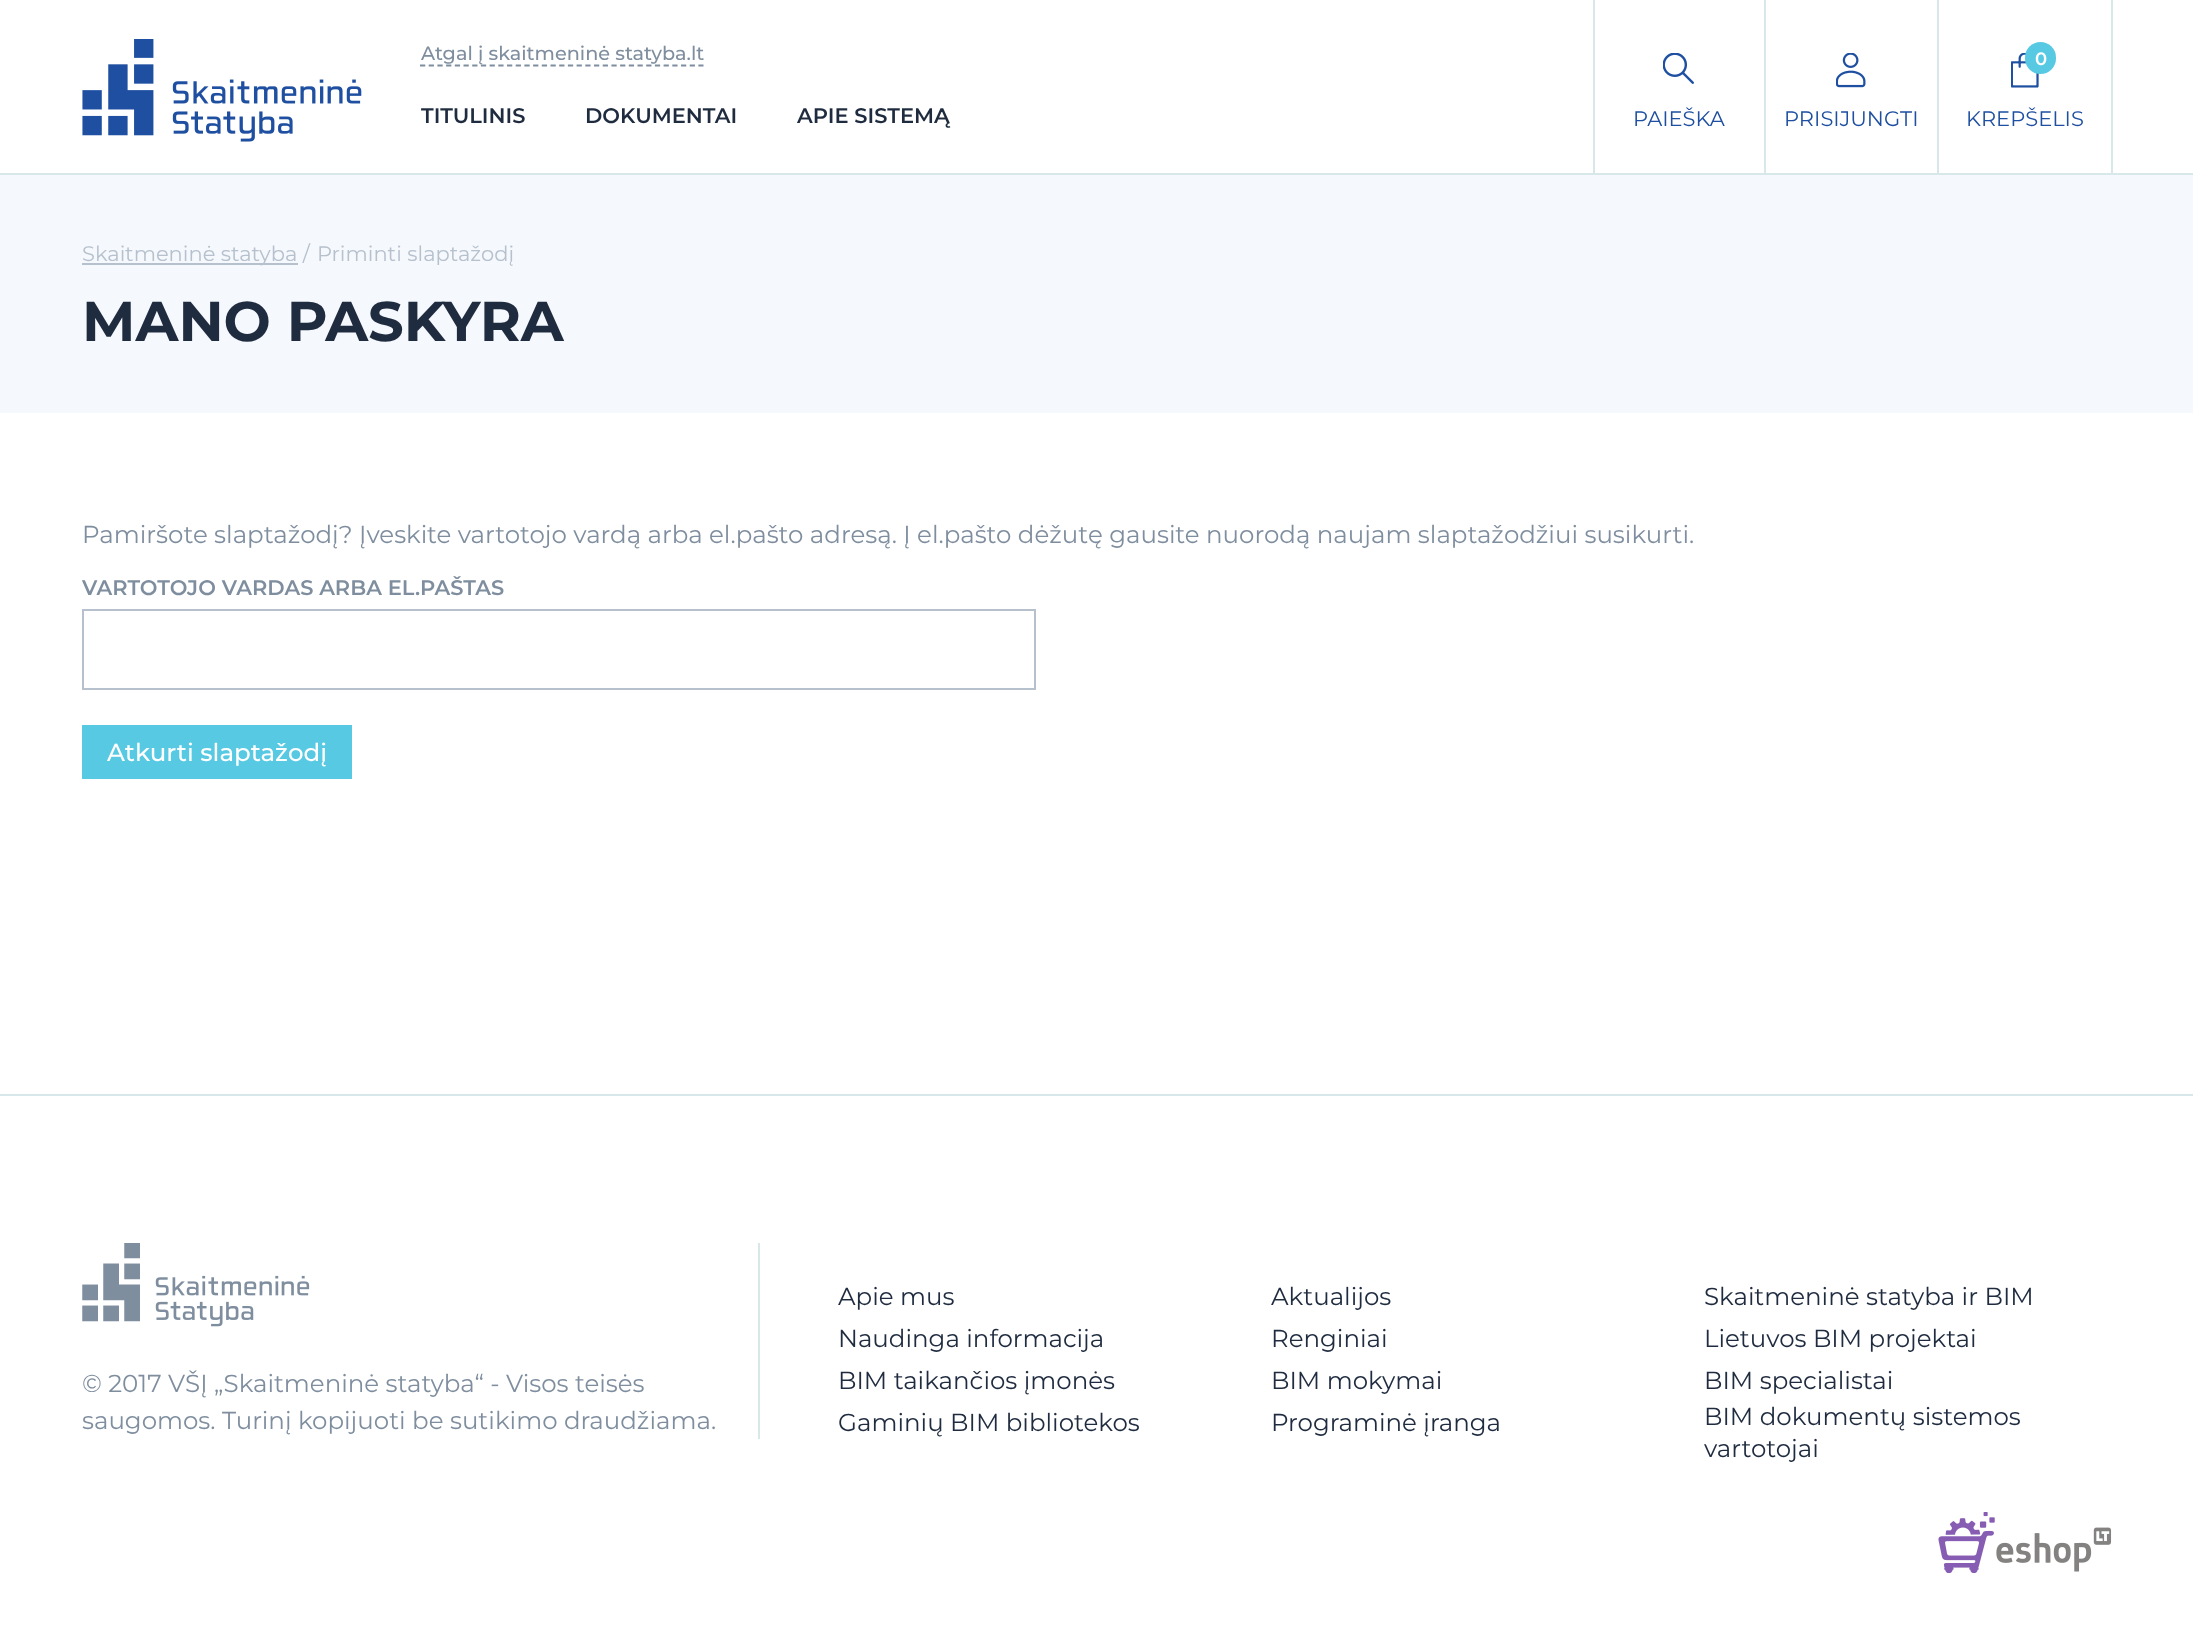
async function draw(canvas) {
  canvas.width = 2193;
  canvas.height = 1631;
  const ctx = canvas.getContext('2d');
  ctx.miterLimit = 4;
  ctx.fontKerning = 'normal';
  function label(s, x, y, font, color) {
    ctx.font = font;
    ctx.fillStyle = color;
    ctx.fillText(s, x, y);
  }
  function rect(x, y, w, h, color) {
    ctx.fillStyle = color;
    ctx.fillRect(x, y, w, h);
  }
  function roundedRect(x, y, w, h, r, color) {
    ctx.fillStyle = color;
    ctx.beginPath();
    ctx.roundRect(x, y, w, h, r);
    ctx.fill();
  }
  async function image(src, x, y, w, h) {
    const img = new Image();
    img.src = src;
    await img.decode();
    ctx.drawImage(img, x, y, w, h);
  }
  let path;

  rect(0, 0, 2193, 1631, '#fff');
  rect(0, 173, 2193, 2, '#d8e7ea');
  await image('assets/img1.png', 82, 39, 280, 103);
  path = new Path2D('M420 65.5H703.5');
  ctx.strokeStyle = '#7f8e9f';
  ctx.lineWidth = 1.8;
  ctx.setLineDash([5.25, 3.45]);
  ctx.stroke(path);
  label('Atgal į skaitmeninė statyba.lt', 421, 60, '500 19.25px Montserrat', '#7f8e9f');
  label('TITULINIS', 421, 123, '600 21px Montserrat', '#1f2b3f');
  label('DOKUMENTAI', 585, 123, '600 21px Montserrat', '#1f2b3f');
  label('APIE SISTEMĄ', 797, 123, '600 21px Montserrat', '#1f2b3f');
  await image('assets/img2.png', 1663, 53, 31, 31);
  rect(1764, 0, 2, 173, '#d8e7ea');
  rect(1593, 0, 2, 173, '#d8e7ea');
  label('PAIEŠKA', 1633, 126, '21px Montserrat', '#1e4fa0');
  await image('assets/img3.png', 1836, 53, 30, 35);
  rect(1937, 0, 2, 173, '#d8e7ea');
  label('PRISIJUNGTI', 1784, 126, '21px Montserrat', '#1e4fa0');
  await image('assets/img4.png', 2011, 53, 28, 35);
  rect(2111, 0, 2, 173, '#d8e7ea');
  roundedRect(2025, 42, 31, 32, 15.5, '#58c9e2');
  label('0', 2035, 65, '600 18px Montserrat', '#fff');
  label('KREPŠELIS', 1966, 126, '21px Montserrat', '#1e4fa0');
  rect(0, 175, 2193, 238, '#f5f8fc');
  rect(82, 263, 216, 2, '#b6c1cd');
  label('Skaitmeninė statyba /', 82, 261, '21px Montserrat', '#b6c1cd');
  label('Priminti slaptažodį', 317, 261, '21px Montserrat', '#b6c1cd');
  label('MANO PASKYRA', 82, 341, 'bold 56px Montserrat', '#1f2b3f');
  label('Pamiršote slaptažodį? Įveskite vartotojo vardą arba el.pašto adresą. Į el.pašto dėžutę gausite nuorodą naujam slaptažodžiui susikurti.', 82, 543, '24.5px Montserrat', '#7f8e9f');
  label('VARTOTOJO VARDAS ARBA EL.PAŠTAS', 82, 595, '600 21px Montserrat', '#7f8e9f');
  ctx.strokeStyle = '#b6c1cd';
  ctx.lineWidth = 2;
  ctx.setLineDash([]);
  ctx.strokeRect(83, 610, 952, 79);
  rect(82, 725, 270, 54, '#58c9e2');
  label('Atkurti slaptažodį', 107, 761, '500 24.5px Montserrat', '#fff');
  rect(0, 1094, 2193, 2, '#d8e7ea');
  rect(758, 1243, 2, 196, '#d8e7ea');
  await image('assets/img5.png', 82, 1243, 228, 84);
  label('© 2017 VŠĮ „Skaitmeninė statyba“ - Visos teisės', 82, 1392, '24.5px Montserrat', '#7f8e9f');
  label('saugomos. Turinį kopijuoti be sutikimo draudžiama.', 82, 1429, '24.5px Montserrat', '#7f8e9f');
  label('Apie mus', 838, 1305, '24.5px Montserrat', '#1f2b3f');
  label('Aktualijos', 1271, 1305, '24.5px Montserrat', '#1f2b3f');
  label('Skaitmeninė statyba ir BIM', 1704, 1305, '24.5px Montserrat', '#1f2b3f');
  label('Naudinga informacija', 838, 1347, '24.5px Montserrat', '#1f2b3f');
  label('Renginiai', 1271, 1347, '24.5px Montserrat', '#1f2b3f');
  label('Lietuvos BIM projektai', 1704, 1347, '24.5px Montserrat', '#1f2b3f');
  label('BIM taikančios įmonės', 838, 1389, '24.5px Montserrat', '#1f2b3f');
  label('BIM mokymai', 1271, 1389, '24.5px Montserrat', '#1f2b3f');
  label('BIM specialistai', 1704, 1389, '24.5px Montserrat', '#1f2b3f');
  label('Gaminių BIM bibliotekos', 838, 1431, '24.5px Montserrat', '#1f2b3f');
  label('Programinė įranga', 1271, 1431, '24.5px Montserrat', '#1f2b3f');
  label('BIM dokumentų sistemos', 1704, 1425, '24.5px Montserrat', '#1f2b3f');
  label('vartotojai', 1704, 1457, '24.5px Montserrat', '#1f2b3f');
  await image('assets/img6.png', 1938, 1512, 174, 61);
}

draw(document.querySelector('canvas'));
